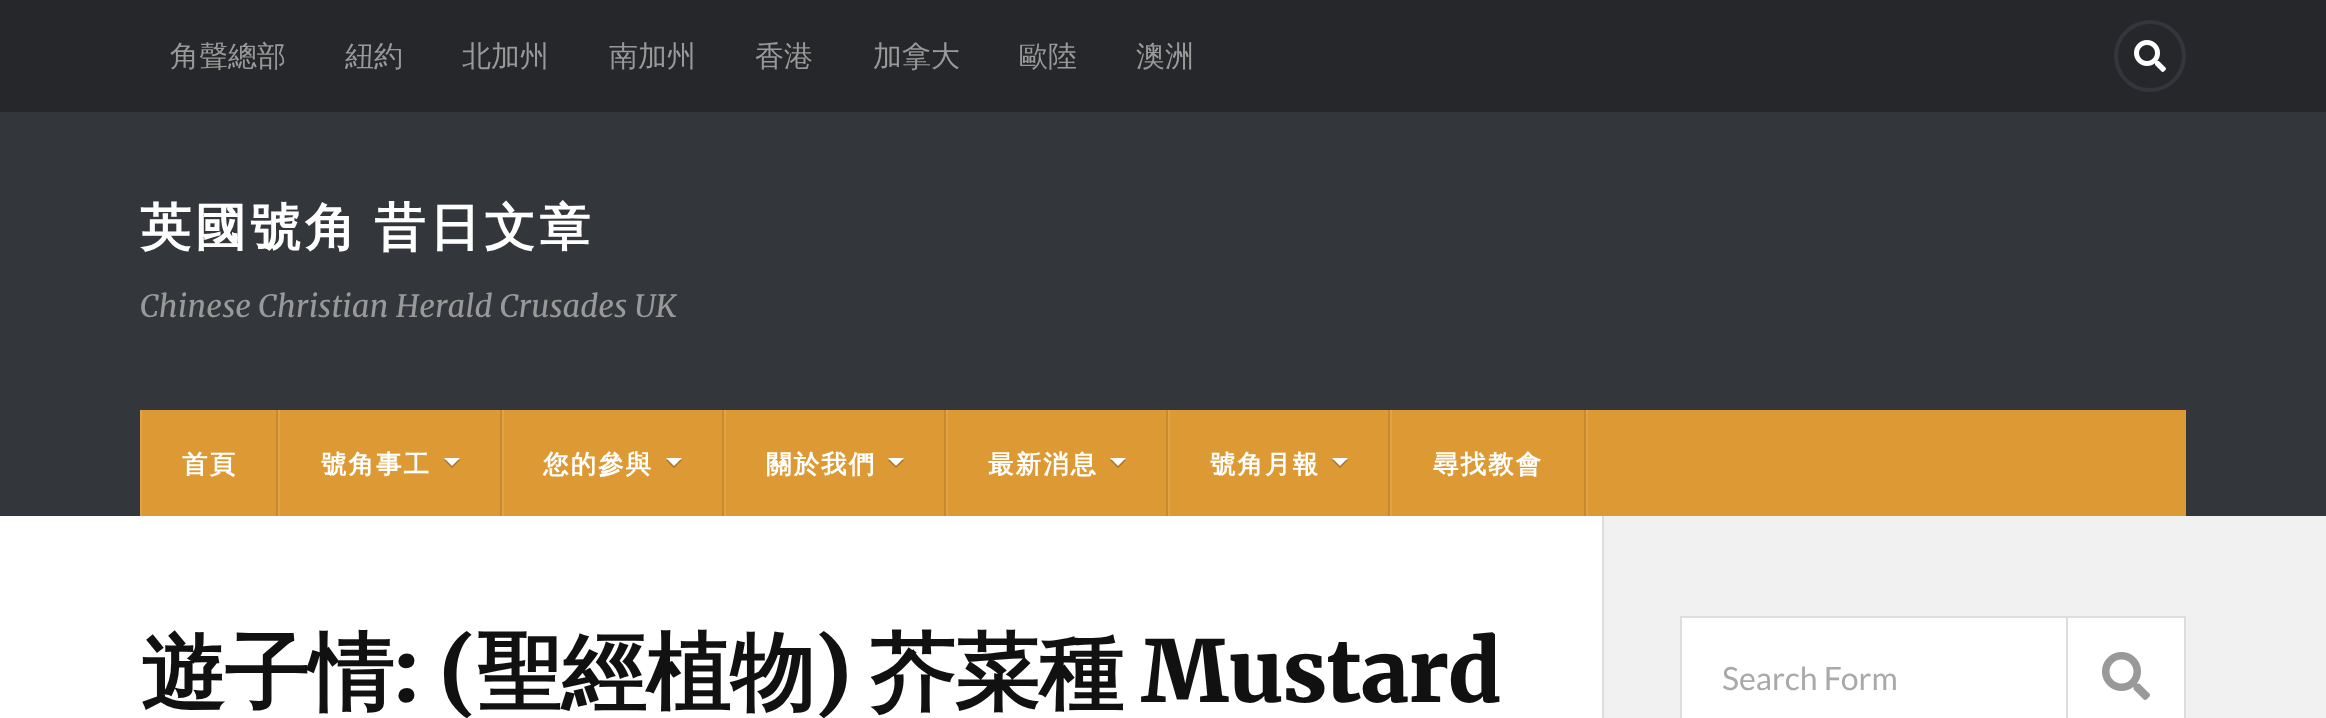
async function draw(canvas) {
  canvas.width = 2326;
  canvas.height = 718;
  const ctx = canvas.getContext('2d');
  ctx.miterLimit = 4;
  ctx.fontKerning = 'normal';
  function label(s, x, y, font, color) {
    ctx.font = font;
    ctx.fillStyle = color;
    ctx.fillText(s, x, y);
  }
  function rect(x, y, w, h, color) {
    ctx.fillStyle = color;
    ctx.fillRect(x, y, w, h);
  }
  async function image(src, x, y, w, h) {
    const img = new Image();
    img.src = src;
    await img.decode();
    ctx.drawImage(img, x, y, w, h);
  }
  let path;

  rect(0, 0, 2326, 718, '#f1f1f1');
  rect(0, 0, 2326, 112, '#26272b');
  label('角聲總部', 170, 66, '500 29px WenQuanYi Zen Hei', '#999');
  label('紐約', 345, 66, '500 29px WenQuanYi Zen Hei', '#999');
  label('北加州', 462, 66, '500 29px WenQuanYi Zen Hei', '#999');
  label('南加州', 609, 66, '500 29px WenQuanYi Zen Hei', '#999');
  label('香港', 755, 66, '500 29px WenQuanYi Zen Hei', '#999');
  label('加拿大', 873, 66, '500 29px WenQuanYi Zen Hei', '#999');
  label('歐陸', 1019, 66, '500 29px WenQuanYi Zen Hei', '#999');
  label('澳洲', 1136, 66, '500 29px WenQuanYi Zen Hei', '#999');
  ctx.beginPath();
  ctx.arc(2150, 56, 34, 0, 2 * Math.PI);
  ctx.strokeStyle = '#33363b';
  ctx.lineWidth = 4;
  ctx.stroke();
  await image('assets/img1.png', 2134, 40, 32, 32);
  rect(0, 112, 2326, 404, '#33363b');
  ctx.letterSpacing = '4px';
  ctx.wordSpacing = '-5px';
  label('英國號角 昔日文章', 140, 245, 'bold 51px WenQuanYi Zen Hei', '#fff');
  ctx.letterSpacing = '0px';
  ctx.wordSpacing = '0px';
  label('Chinese Christian Herald Crusades UK', 140, 317, 'italic 30.6px Merriweather', '#999');
  rect(142, 410, 2044, 106, '#d93');
  rect(276, 410, 2, 106, '#c78a2e');
  rect(140, 410, 2, 106, '#e0a347');
  ctx.letterSpacing = '2px';
  label('首頁', 182, 473, 'bold 25.5px WenQuanYi Zen Hei', '#fff');
  rect(500, 410, 2, 106, '#c78a2e');
  rect(278, 410, 2, 106, '#e0a347');
  label('號角事工', 321, 473, 'bold 25.5px WenQuanYi Zen Hei', '#fff');
  ctx.fillStyle = '#a67326';
  path = new Path2D('M444 460H460L452 468Z');
  ctx.fill(path);
  ctx.fillStyle = '#fff';
  path = new Path2D('M444 458H460L452 466Z');
  ctx.fill(path);
  rect(722, 410, 2, 106, '#c78a2e');
  rect(502, 410, 2, 106, '#e0a347');
  label('您的參與', 543, 473, 'bold 25.5px WenQuanYi Zen Hei', '#fff');
  ctx.fillStyle = '#a67326';
  path = new Path2D('M666 460H682L674 468Z');
  ctx.fill(path);
  ctx.fillStyle = '#fff';
  path = new Path2D('M666 458H682L674 466Z');
  ctx.fill(path);
  rect(944, 410, 2, 106, '#c78a2e');
  rect(724, 410, 2, 106, '#e0a347');
  label('關於我們', 766, 473, 'bold 25.5px WenQuanYi Zen Hei', '#fff');
  ctx.fillStyle = '#a67326';
  path = new Path2D('M888 460H904L896 468Z');
  ctx.fill(path);
  ctx.fillStyle = '#fff';
  path = new Path2D('M888 458H904L896 466Z');
  ctx.fill(path);
  rect(1166, 410, 2, 106, '#c78a2e');
  rect(946, 410, 2, 106, '#e0a347');
  label('最新消息', 988, 473, 'bold 25.5px WenQuanYi Zen Hei', '#fff');
  ctx.fillStyle = '#a67326';
  path = new Path2D('M1110 460H1126L1118 468Z');
  ctx.fill(path);
  ctx.fillStyle = '#fff';
  path = new Path2D('M1110 458H1126L1118 466Z');
  ctx.fill(path);
  rect(1388, 410, 2, 106, '#c78a2e');
  rect(1168, 410, 2, 106, '#e0a347');
  label('號角月報', 1210, 473, 'bold 25.5px WenQuanYi Zen Hei', '#fff');
  ctx.fillStyle = '#a67326';
  path = new Path2D('M1332 460H1348L1340 468Z');
  ctx.fill(path);
  ctx.fillStyle = '#fff';
  path = new Path2D('M1332 458H1348L1340 466Z');
  ctx.fill(path);
  rect(1584, 410, 2, 106, '#c78a2e');
  rect(1390, 410, 2, 106, '#e0a347');
  label('尋找教會', 1433, 473, 'bold 25.5px WenQuanYi Zen Hei', '#fff');
  rect(1586, 410, 2, 106, '#e0a347');
  rect(0, 516, 1602, 202, '#fff');
  ctx.letterSpacing = '-0.75px';
  label('遊子情', 140, 702, 'bold 85px WenQuanYi Zen Hei', '#111');
  label(': (', 392, 702, '900 85px Merriweather', '#111');
  label('聖經植物', 477, 702, 'bold 85px WenQuanYi Zen Hei', '#111');
  label(')', 813, 702, '900 85px Merriweather', '#111');
  label('芥菜種', 870, 702, 'bold 85px WenQuanYi Zen Hei', '#111');
  label('Mustard', 1141, 702, '900 85px Merriweather', '#111');
  rect(1602, 516, 2, 202, '#ddd');
  ctx.fillStyle = '#fff';
  ctx.beginPath();
  ctx.rect(1681, 617, 504, 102);
  ctx.fill();
  ctx.strokeStyle = '#ddd';
  ctx.lineWidth = 2;
  ctx.stroke();
  ctx.letterSpacing = '0px';
  label('Search Form', 1722, 690, '32px Lato', '#a9a9a9');
  rect(2066, 618, 2, 100, '#ddd');
  await image('assets/img2.png', 2102, 652, 48, 48);
}

draw(document.querySelector('canvas'));
